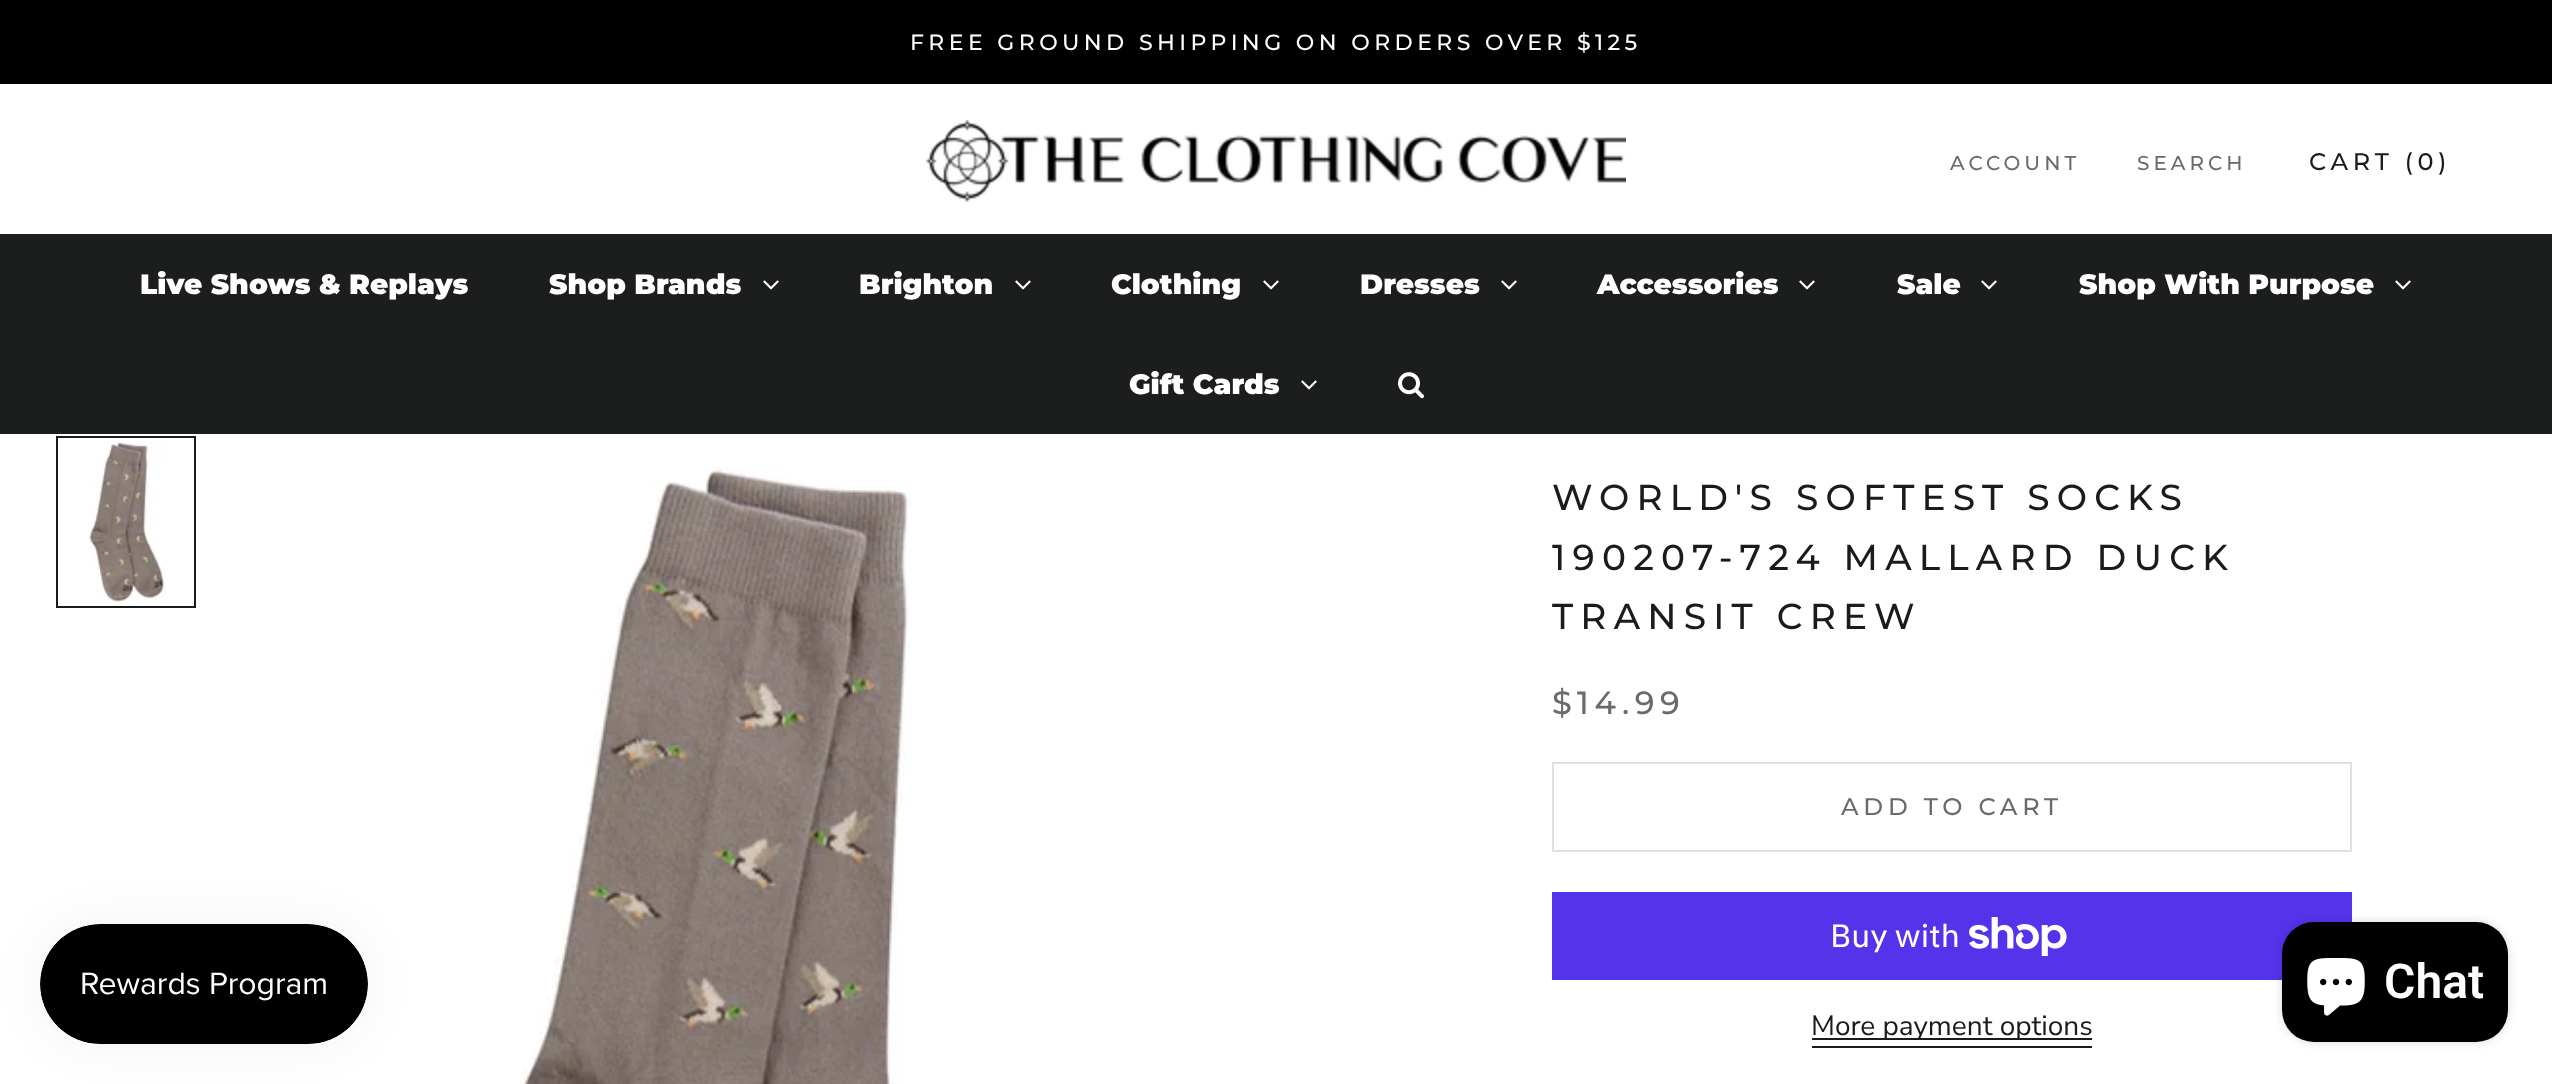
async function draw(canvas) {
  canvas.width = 2552;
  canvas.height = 1084;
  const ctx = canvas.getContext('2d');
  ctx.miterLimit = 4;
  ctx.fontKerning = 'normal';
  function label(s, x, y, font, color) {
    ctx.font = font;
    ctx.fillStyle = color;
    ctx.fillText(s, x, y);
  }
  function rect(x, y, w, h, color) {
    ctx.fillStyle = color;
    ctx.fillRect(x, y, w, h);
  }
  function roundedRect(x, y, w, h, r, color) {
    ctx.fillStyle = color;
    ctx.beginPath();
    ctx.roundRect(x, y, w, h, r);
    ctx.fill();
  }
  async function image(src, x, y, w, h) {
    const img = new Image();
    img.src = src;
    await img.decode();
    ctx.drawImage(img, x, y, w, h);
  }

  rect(0, 0, 2552, 1084, '#fff');
  rect(0, 0, 2552, 84, '#000');
  ctx.letterSpacing = '4.4px';
  label('FREE GROUND SHIPPING ON ORDERS OVER $125', 910, 50, '500 22px Montserrat', '#fff');
  await image('assets/img1.png', 926, 120, 700, 83);
  ctx.letterSpacing = '4px';
  label('ACCOUNT', 1950, 170, '500 20px Montserrat', '#6a6a6a');
  label('SEARCH', 2137, 170, '500 20px Montserrat', '#6a6a6a');
  ctx.letterSpacing = '4.75px';
  label('CART (0)', 2309, 170, '500 24px Montserrat', '#1c1b1b');
  rect(0, 234, 2552, 200, '#1c1d1d');
  ctx.letterSpacing = '0px';
  label('Live Shows & Replays', 140, 294, '900 28px Montserrat', '#fff');
  label('Shop Brands', 549, 294, '900 28px Montserrat', '#fff');
  await image('assets/img2.png', 763, 280, 16, 10);
  label('Brighton', 859, 294, '900 28px Montserrat', '#fff');
  await image('assets/img2.png', 1015, 280, 16, 10);
  label('Clothing', 1111, 294, '900 28px Montserrat', '#fff');
  await image('assets/img2.png', 1263, 280, 16, 10);
  label('Dresses', 1360, 294, '900 28px Montserrat', '#fff');
  await image('assets/img2.png', 1501, 280, 16, 10);
  label('Accessories', 1597, 294, '900 28px Montserrat', '#fff');
  await image('assets/img2.png', 1799, 280, 16, 10);
  label('Sale', 1897, 294, '900 28px Montserrat', '#fff');
  await image('assets/img2.png', 1981, 280, 16, 10);
  label('Shop With Purpose', 2079, 294, '900 28px Montserrat', '#fff');
  await image('assets/img2.png', 2395, 280, 16, 10);
  label('Gift Cards', 1129, 394, '900 28px Montserrat', '#fff');
  await image('assets/img2.png', 1301, 380, 16, 10);
  await image('assets/img3.png', 1398, 372, 26, 27);
  ctx.strokeStyle = '#1c1b1b';
  ctx.lineWidth = 2;
  ctx.strokeRect(57, 437, 138, 170);
  await image('assets/img4.png', 89, 441, 78, 163);
  await image('assets/img5.png', 520, 467, 393, 617);
  ctx.letterSpacing = '7.2px';
  label('WORLD\'S SOFTEST SOCKS', 1552, 510, '500 36px Montserrat', '#1c1b1b');
  label('190207-724 MALLARD DUCK', 1552, 570, '500 36px Montserrat', '#1c1b1b');
  label('TRANSIT CREW', 1552, 629, '500 36px Montserrat', '#1c1b1b');
  ctx.letterSpacing = '5.5px';
  label('$14.99', 1552, 714, '500 32px Montserrat', '#6a6a6a');
  ctx.strokeStyle = '#e1e1e1';
  ctx.strokeRect(1553, 763, 798, 88);
  ctx.letterSpacing = '4.75px';
  label('ADD TO CART', 1841, 815, '500 24px Montserrat', '#6a6a6a');
  rect(1552, 892, 800, 88, '#5433eb');
  ctx.letterSpacing = '0px';
  label('Buy with', 1830, 947, '32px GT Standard', '#fff');
  await image('assets/img6.png', 1969, 917, 98, 39);
  rect(1812, 1038, 280, 2, '#1c1b1b');
  label('More payment options', 1811, 1035, '28px Nunito Sans', '#1c1b1b');
  rect(1812, 1046, 280, 2, '#1c1b1b');
  ctx.fillStyle = '#0000000d';
  ctx.filter = 'blur(25px)';
  ctx.beginPath();
  ctx.roundRect(40, 924, 328, 120, 60);
  ctx.fill();
  ctx.filter = 'none';
  await image('assets/img7.png', 40, 924, 328, 120);
  ctx.fillStyle = '#00000026';
  ctx.filter = 'blur(5px)';
  ctx.beginPath();
  ctx.roundRect(2282, 922, 226, 120, 32);
  ctx.fill();
  ctx.filter = 'none';
  roundedRect(2282, 922, 226, 120, 32, '#000');
  await image('assets/img8.png', 2307, 958, 58, 58);
  label('Chat', 2384, 998, '600 48px Roboto', '#fff');
}

draw(document.querySelector('canvas'));
